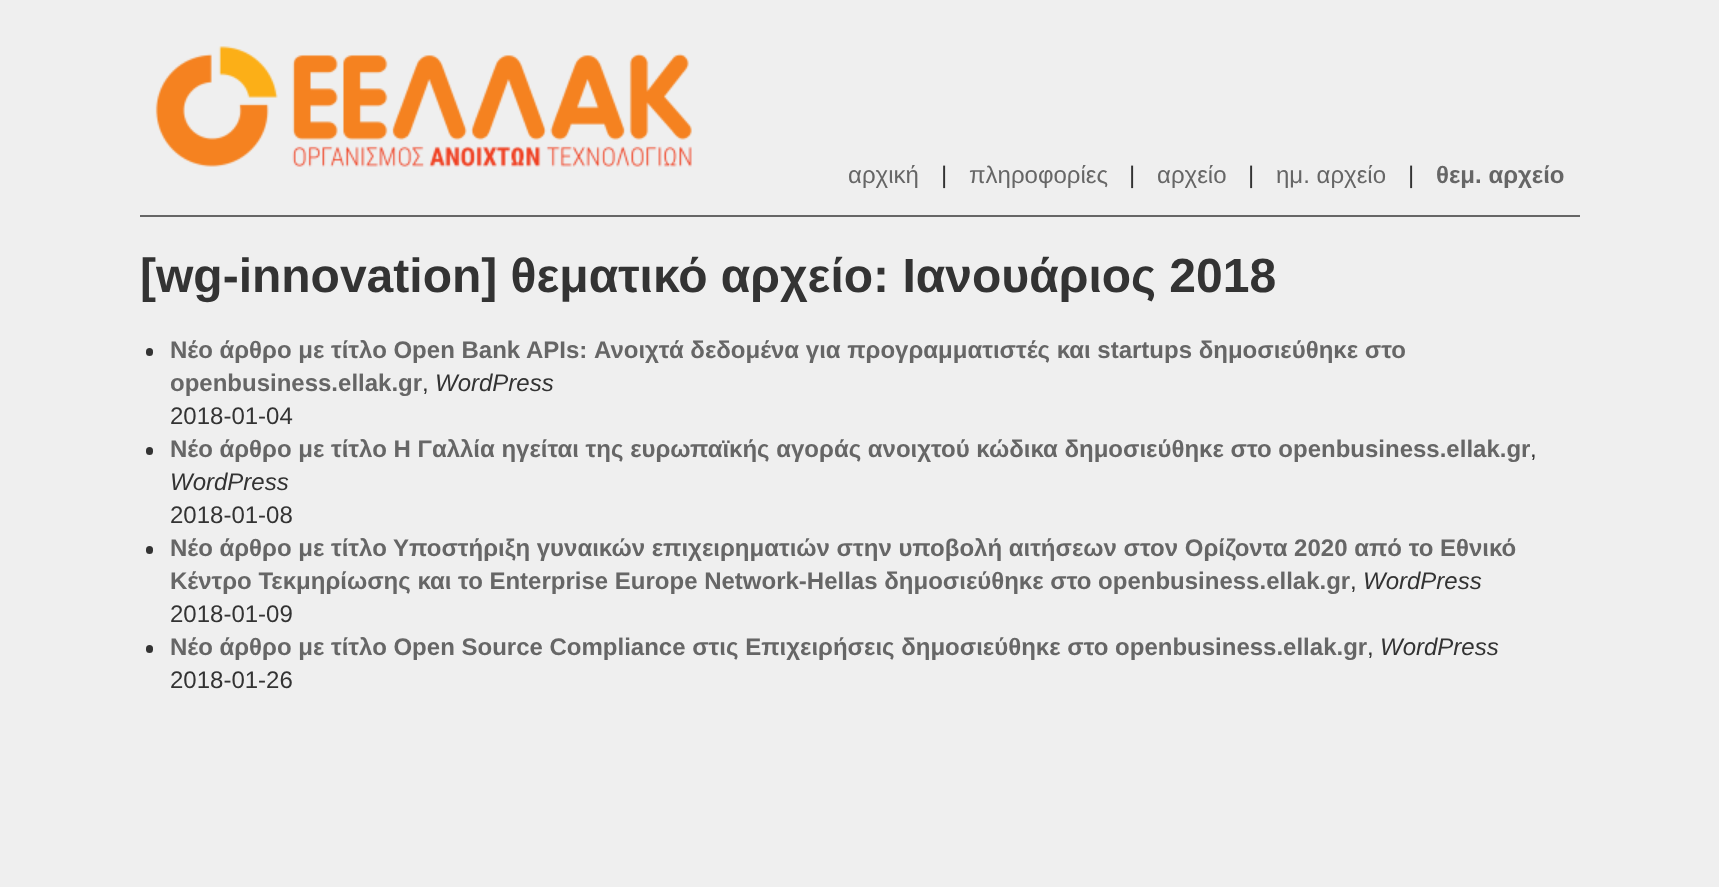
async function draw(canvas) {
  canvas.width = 1719;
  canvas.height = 887;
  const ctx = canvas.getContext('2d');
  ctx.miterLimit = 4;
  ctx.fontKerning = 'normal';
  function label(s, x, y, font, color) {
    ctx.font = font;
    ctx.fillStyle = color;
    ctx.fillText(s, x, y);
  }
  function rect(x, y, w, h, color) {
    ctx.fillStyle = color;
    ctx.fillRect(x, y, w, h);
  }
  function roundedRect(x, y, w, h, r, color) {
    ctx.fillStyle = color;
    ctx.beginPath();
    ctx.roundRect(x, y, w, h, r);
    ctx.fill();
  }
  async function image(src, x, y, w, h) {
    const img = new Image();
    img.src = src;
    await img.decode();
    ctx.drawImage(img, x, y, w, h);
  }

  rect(0, 0, 1719, 887, '#efefef');
  rect(140, 215, 1440, 2, '#666');
  await image('assets/img1.png', 155, 46, 537, 121);
  label('αρχική', 848, 183, '24px Liberation Sans', '#666');
  label('|', 941, 183, '24px Liberation Sans', '#333');
  label('πληροφορίες', 969, 183, '24px Liberation Sans', '#666');
  label('|', 1129, 183, '24px Liberation Sans', '#333');
  label('αρχείο', 1157, 183, '24px Liberation Sans', '#666');
  label('|', 1248, 183, '24px Liberation Sans', '#333');
  label('ημ. αρχείο', 1276, 183, '24px Liberation Sans', '#666');
  label('|', 1408, 183, '24px Liberation Sans', '#333');
  label('θεμ. αρχείο', 1436, 183, 'bold 24px Liberation Sans', '#666');
  label('[wg-innovation] θεματικό αρχείο: Ιανουάριος 2018', 140, 292, 'bold 48px Liberation Sans', '#333');
  roundedRect(146, 348, 7, 8, 3.5, '#333');
  label('Νέο άρθρο με τίτλο Open Bank APIs: Ανοιχτά δεδομένα για προγραμματιστές και startups δημοσιεύθηκε στο', 170, 358, 'bold 24px Liberation Sans', '#666');
  label('openbusiness.ellak.gr', 170, 391, 'bold 24px Liberation Sans', '#666');
  label(',', 422, 391, '24px Liberation Sans', '#333');
  label('WordPress', 435, 391, 'italic 24px Liberation Sans', '#333');
  label('2018-01-04', 170, 424, '24px Liberation Sans', '#333');
  roundedRect(146, 447, 7, 8, 3.5, '#333');
  label('Νέο άρθρο με τίτλο Η Γαλλία ηγείται της ευρωπαϊκής αγοράς ανοιχτού κώδικα δημοσιεύθηκε στο openbusiness.ellak.gr', 170, 457, 'bold 24px Liberation Sans', '#666');
  label(',', 1530, 457, '24px Liberation Sans', '#333');
  label('WordPress', 170, 490, 'italic 24px Liberation Sans', '#333');
  label('2018-01-08', 170, 523, '24px Liberation Sans', '#333');
  roundedRect(146, 546, 7, 8, 3.5, '#333');
  label('Νέο άρθρο με τίτλο Υποστήριξη γυναικών επιχειρηματιών στην υποβολή αιτήσεων στον Ορίζοντα 2020 από το Εθνικό', 170, 556, 'bold 24px Liberation Sans', '#666');
  label('Κέντρο Τεκμηρίωσης και το Enterprise Europe Network-Hellas δημοσιεύθηκε στο openbusiness.ellak.gr', 170, 589, 'bold 24px Liberation Sans', '#666');
  label(',', 1350, 589, '24px Liberation Sans', '#333');
  label('WordPress', 1363, 589, 'italic 24px Liberation Sans', '#333');
  label('2018-01-09', 170, 622, '24px Liberation Sans', '#333');
  roundedRect(146, 645, 7, 8, 3.5, '#333');
  label('Νέο άρθρο με τίτλο Open Source Compliance στις Επιχειρήσεις δημοσιεύθηκε στο openbusiness.ellak.gr', 170, 655, 'bold 24px Liberation Sans', '#666');
  label('WordPress', 1380, 655, 'italic 24px Liberation Sans', '#333');
  label(',', 1367, 655, '24px Liberation Sans', '#333');
  label('2018-01-26', 170, 688, '24px Liberation Sans', '#333');
}

draw(document.querySelector('canvas'));
